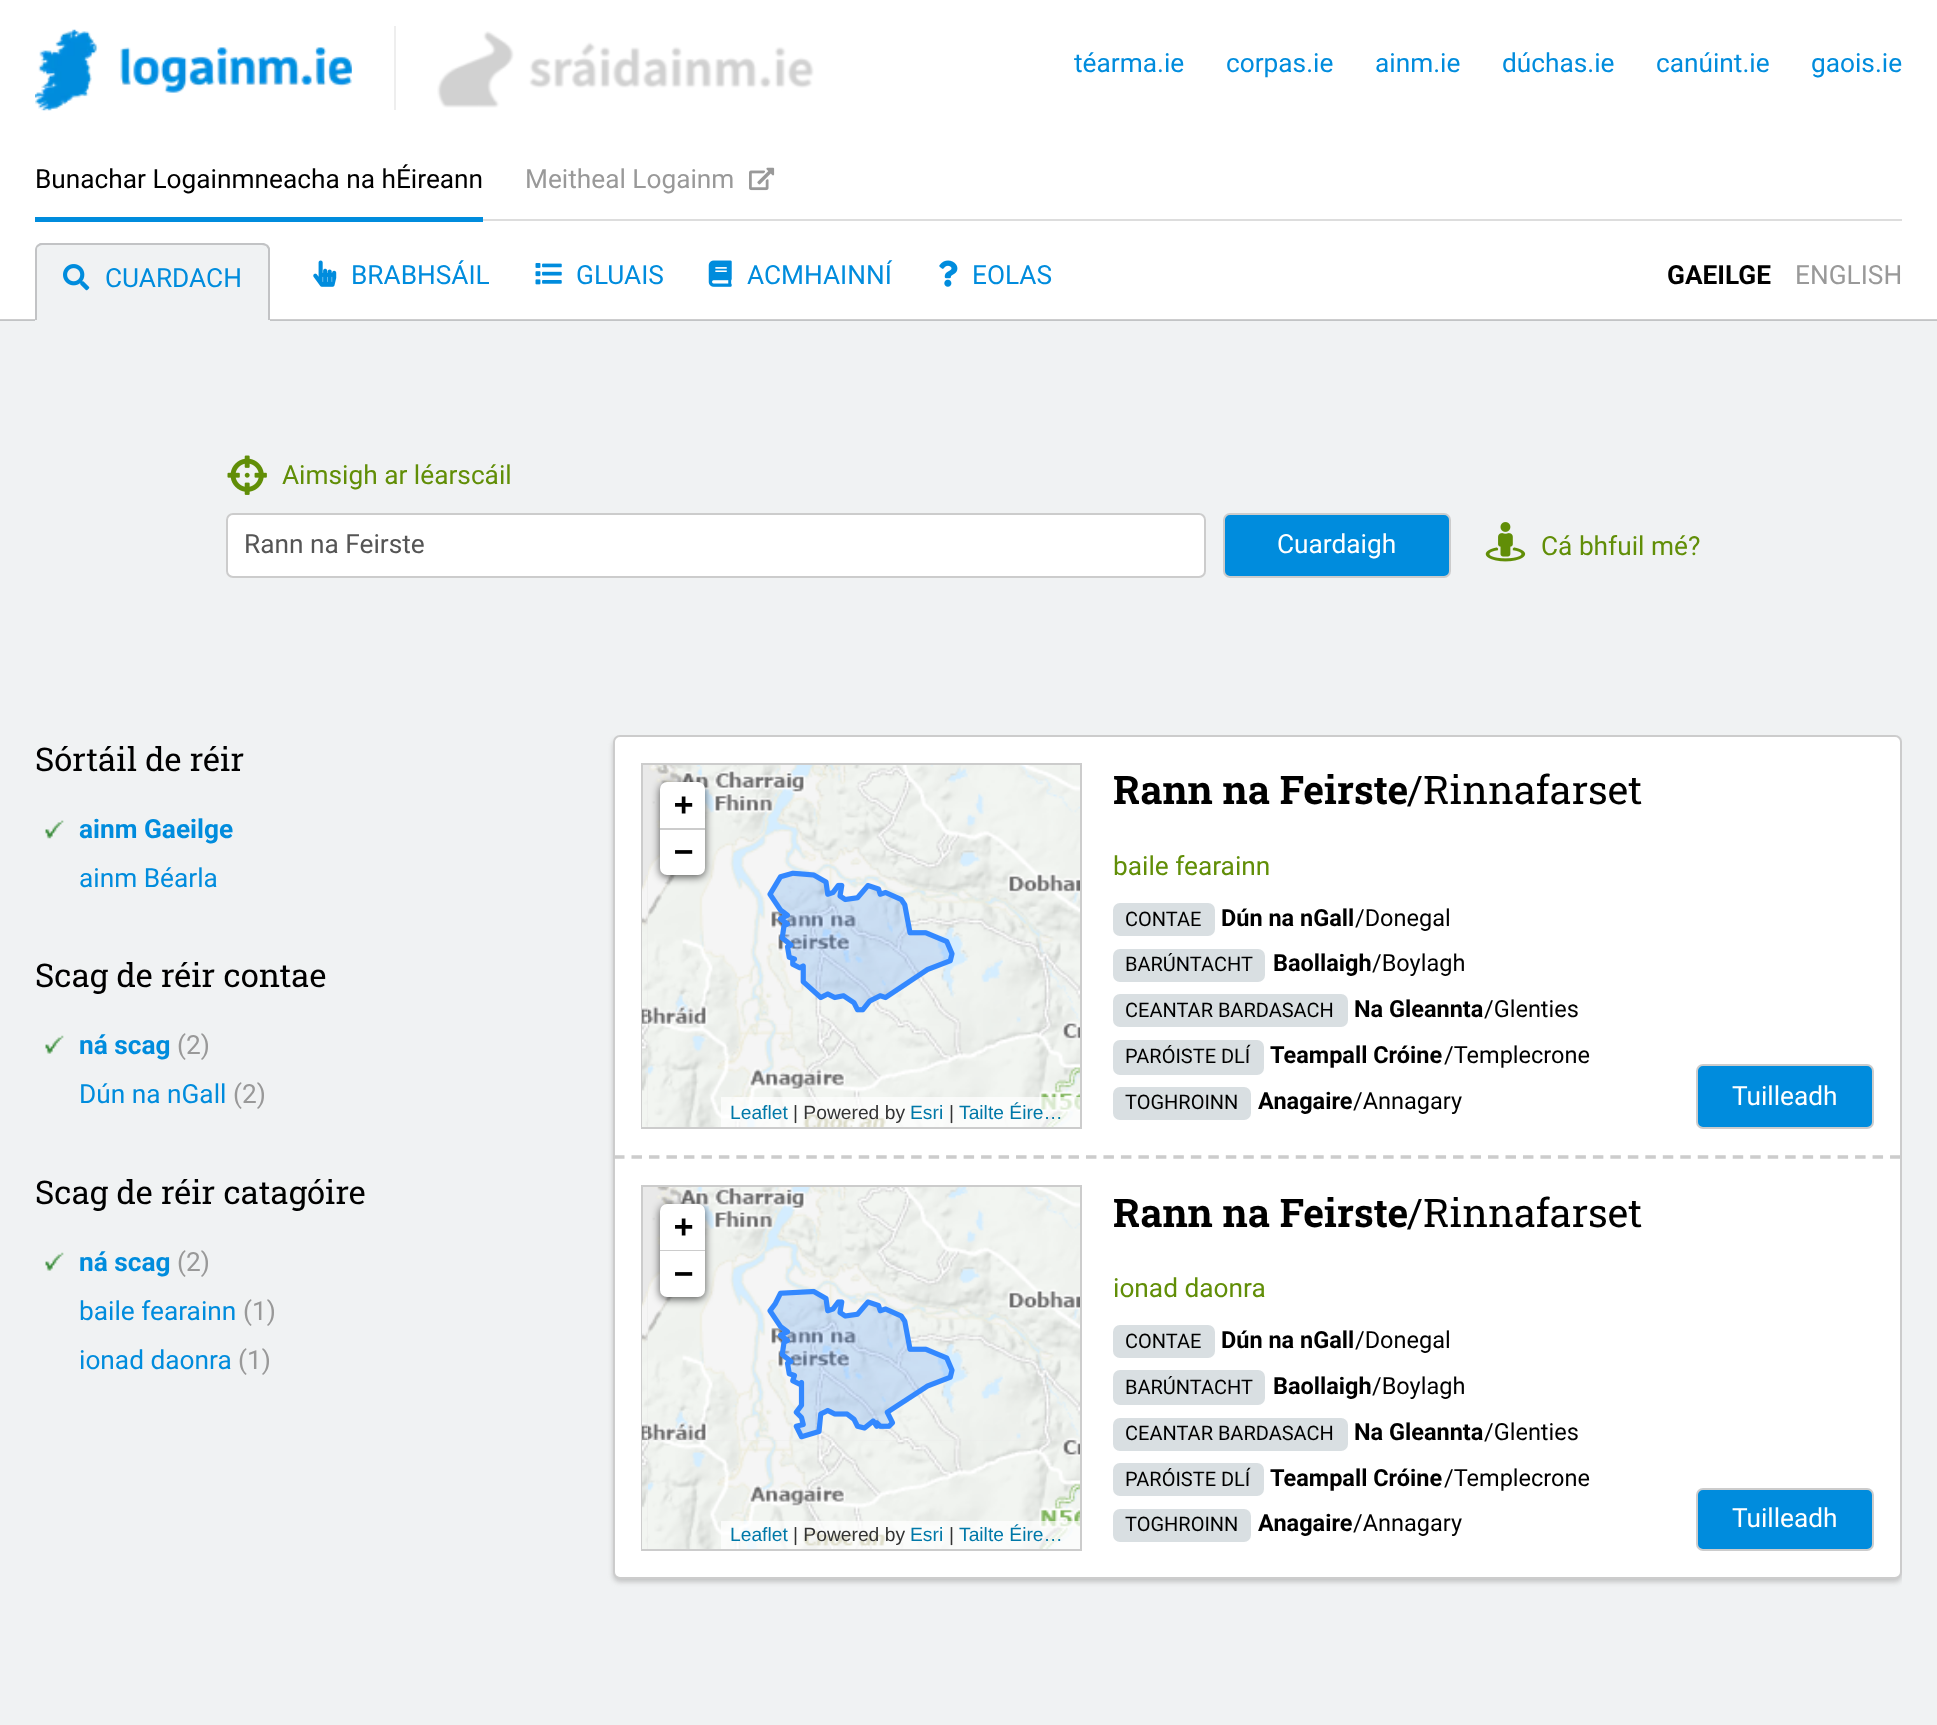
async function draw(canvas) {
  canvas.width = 1937;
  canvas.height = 1725;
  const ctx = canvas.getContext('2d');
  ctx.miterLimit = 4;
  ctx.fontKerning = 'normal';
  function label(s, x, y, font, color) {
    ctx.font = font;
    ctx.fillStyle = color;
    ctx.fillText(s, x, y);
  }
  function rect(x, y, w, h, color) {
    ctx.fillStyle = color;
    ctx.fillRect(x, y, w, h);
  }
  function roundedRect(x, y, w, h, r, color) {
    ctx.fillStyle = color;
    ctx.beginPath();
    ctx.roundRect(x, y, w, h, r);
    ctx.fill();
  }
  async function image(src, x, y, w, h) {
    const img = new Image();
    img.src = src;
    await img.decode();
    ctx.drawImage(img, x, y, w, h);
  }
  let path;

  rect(0, 0, 1937, 1725, '#f0f2f3');
  rect(0, 320, 1937, 1, '#c2c4c5');
  rect(0, 0, 1937, 319, '#fff');
  rect(0, 319, 1937, 1, '#cdcdce');
  await image('assets/img1.png', 35, 29, 317, 82);
  rect(394, 26, 2, 84, '#eee');
  await image('assets/img2.png', 437, 31, 377, 77);
  label('téarma.ie', 1074, 72, '26.25px Roboto', '#008cdd');
  label('corpas.ie', 1226, 72, '26.25px Roboto', '#008cdd');
  label('ainm.ie', 1375, 72, '26.25px Roboto', '#008cdd');
  label('dúchas.ie', 1502, 72, '26.25px Roboto', '#008cdd');
  label('canúint.ie', 1656, 72, '26.25px Roboto', '#008cdd');
  label('gaois.ie', 1811, 72, '26.25px Roboto', '#008cdd');
  rect(483, 219, 1419, 2, '#ddd');
  rect(35, 217, 448, 5, '#008cdd');
  label('Bunachar Logainmneacha na hÉireann', 35, 188, '26.25px Roboto', '#000');
  label('Meitheal Logainm', 525, 188, '26.25px Roboto', '#999');
  await image('assets/img3.png', 749, 167, 26, 24);
  ctx.fillStyle = '#f0f2f3';
  ctx.beginPath();
  ctx.roundRect(35, 243, 235, 79, [7, 7, 0, 0]);
  ctx.fill();
  ctx.fillStyle = '#38383c40';
  path = new Path2D('M42 245C40 245 39 246 38 247L37 245L40 243H264L268 245L266 246C265 246 264 245 262 245Z');
  ctx.fill(path);
  path = new Path2D('M270 248V322L268 320V249L266 246L268 245Z');
  ctx.fill(path);
  path = new Path2D('M35 322L37 320V250C37 249 37 247 38 247L37 245C36 246 35 248 35 250Z');
  ctx.fill(path);
  await image('assets/img4.png', 63, 264, 27, 27);
  label('CUARDACH', 105, 287, '26.25px Roboto', '#008cdd');
  rect(35, 320, 235, 2, '#f0f2f3');
  await image('assets/img5.png', 313, 260, 24, 27);
  label('BRABHSÁIL', 351, 284, '26.25px Roboto', '#008cdd');
  await image('assets/img6.png', 535, 263, 27, 22);
  label('GLUAIS', 576, 284, '26.25px Roboto', '#008cdd');
  await image('assets/img7.png', 708, 260, 24, 27);
  label('ACMHAINNÍ', 747, 284, '26.25px Roboto', '#008cdd');
  await image('assets/img8.png', 939, 260, 19, 27);
  label('EOLAS', 972, 284, '26.25px Roboto', '#008cdd');
  label('GAEILGE', 1667, 284, 'bold 26.25px Roboto', '#000');
  label('ENGLISH', 1795, 284, '26.25px Roboto', '#999');
  await image('assets/img9.png', 227, 455, 40, 40);
  label('Aimsigh ar léarscáil', 282, 484, '26.25px Roboto', '#618e07');
  ctx.fillStyle = '#fff';
  ctx.beginPath();
  ctx.roundRect(227, 514, 978, 63, 6);
  ctx.fill();
  ctx.strokeStyle = '#ccc';
  ctx.lineWidth = 2;
  ctx.stroke();
  label('Rann na Feirste', 244, 553, '26.25px Roboto', '#555');
  ctx.fillStyle = '#008cdd';
  ctx.beginPath();
  ctx.roundRect(1224, 514, 226, 63, 6);
  ctx.fill();
  ctx.stroke();
  label('Cuardaigh', 1277, 553, '26.25px Roboto', '#fff');
  await image('assets/img10.png', 1485, 522, 41, 40);
  label('Cá bhfuil mé?', 1541, 555, '26.25px Roboto', '#618e07');
  label('Sórtáil de réir', 35, 771, '32.75px Roboto Slab', '#000');
  await image('assets/img11.png', 45, 820, 19, 19);
  label('ainm Gaeilge', 79, 838, 'bold 26.25px Roboto', '#008cdd');
  label('ainm Béarla', 79, 887, '26.25px Roboto', '#008cdd');
  label('Scag de réir contae', 35, 987, '32.75px Roboto Slab', '#000');
  await image('assets/img12.png', 45, 1035, 19, 19);
  label('ná scag', 79, 1054, 'bold 26.25px Roboto', '#008cdd');
  label('(2)', 177, 1054, '26.25px Roboto', '#999');
  label('Dún na nGall', 79, 1103, '26.25px Roboto', '#008cdd');
  label('(2)', 233, 1103, '26.25px Roboto', '#999');
  label('Scag de réir catagóire', 35, 1204, '32.75px Roboto Slab', '#000');
  await image('assets/img12.png', 45, 1252, 19, 19);
  label('ná scag', 79, 1271, 'bold 26.25px Roboto', '#008cdd');
  label('(2)', 177, 1271, '26.25px Roboto', '#999');
  label('baile fearainn', 79, 1320, '26.25px Roboto', '#008cdd');
  label('(1)', 243, 1320, '26.25px Roboto', '#999');
  label('ionad daonra', 79, 1369, '26.25px Roboto', '#008cdd');
  label('(1)', 238, 1369, '26.25px Roboto', '#999');
  ctx.save();
  ctx.beginPath();
  ctx.rect(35, 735, 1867, 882);
  ctx.clip();
  ctx.fillStyle = '#96969680';
  ctx.filter = 'blur(2.5px)';
  ctx.beginPath();
  ctx.roundRect(613, 739, 1289, 843, 7);
  ctx.fill();
  ctx.filter = 'none';
  ctx.restore();
  ctx.fillStyle = '#fff';
  ctx.beginPath();
  ctx.roundRect(614, 736, 1287, 842, 6);
  ctx.fill();
  ctx.stroke();
  path = new Path2D('M614 1157H1900.5');
  ctx.lineWidth = 3.5;
  ctx.setLineDash([10.5, 6.98]);
  ctx.stroke(path);
  label('Rann na Feirste', 1113, 804, 'bold 39.5px Roboto Slab', '#000');
  label('/Rinnafarset', 1407, 804, '39.5px Roboto Slab', '#000');
  ctx.fillStyle = '#e9e9e9';
  ctx.beginPath();
  ctx.rect(642, 764, 439, 364);
  ctx.fill();
  ctx.lineWidth = 2;
  ctx.setLineDash([]);
  ctx.stroke();
  await image('assets/img13.png', 642, 875, 6, 149);
  await image('assets/img14.png', 648, 765, 432, 259);
  await image('assets/img15.png', 642, 1023, 6, 104);
  await image('assets/img16.png', 648, 1023, 432, 104);
  await image('assets/img17.png', 767, 870, 188, 143);
  ctx.fillStyle = '#000000a6';
  ctx.filter = 'blur(4.5px)';
  ctx.beginPath();
  ctx.roundRect(660, 784, 45, 93, 7);
  ctx.fill();
  ctx.filter = 'none';
  ctx.fillStyle = '#fff';
  ctx.beginPath();
  ctx.roundRect(660, 782, 45, 48, [7, 7, 0, 0]);
  ctx.fill();
  rect(660, 828, 45, 2, '#ccc');
  label('+', 674, 815, 'bold 32px DejaVu Sans Mono', '#000');
  ctx.fillStyle = '#fff';
  ctx.beginPath();
  ctx.roundRect(660, 830, 45, 45, [0, 0, 7, 7]);
  ctx.fill();
  label('−', 674, 862, 'bold 32px DejaVu Sans Mono', '#000');
  rect(721, 1097, 359, 30, '#ffffffb3');
  label('Leaflet', 730, 1119, '19.25px Liberation Sans', '#0078a8');
  label('| Powered by', 793, 1119, '19.25px Liberation Sans', '#333');
  label('Esri', 910, 1119, '19.25px Liberation Sans', '#0078a8');
  label('|', 949, 1119, '19.25px Liberation Sans', '#333');
  label('Tailte Éire…', 959, 1119, '19.25px Liberation Sans', '#0078a8');
  label('baile fearainn', 1113, 875, '26.25px Roboto', '#618e07');
  roundedRect(1113, 903, 102, 33, 7, '#d9dfe2');
  label('CONTAE', 1125, 926, '20px Roboto', '#000');
  label('Dún na nGall', 1221, 926, 'bold 23.5px Roboto', '#000');
  label('/Donegal', 1355, 926, '23.5px Roboto', '#000');
  roundedRect(1113, 949, 152, 33, 7, '#d9dfe2');
  label('BARÚNTACHT', 1125, 971, '20px Roboto', '#000');
  label('Baollaigh', 1273, 971, 'bold 23.5px Roboto', '#000');
  label('/Boylagh', 1372, 971, '23.5px Roboto', '#000');
  roundedRect(1113, 994, 235, 33, 7, '#d9dfe2');
  label('CEANTAR BARDASACH', 1125, 1017, '20px Roboto', '#000');
  label('Na Gleannta', 1354, 1017, 'bold 23.5px Roboto', '#000');
  label('/Glenties', 1484, 1017, '23.5px Roboto', '#000');
  roundedRect(1113, 1040, 151, 35, 7, '#d9dfe2');
  label('PARÓISTE DLÍ', 1125, 1063, '20px Roboto', '#000');
  label('Teampall Cróine', 1270, 1063, 'bold 23.5px Roboto', '#000');
  label('/Templecrone', 1444, 1063, '23.5px Roboto', '#000');
  roundedRect(1113, 1087, 138, 33, 7, '#d9dfe2');
  label('TOGHROINN', 1125, 1109, '20px Roboto', '#000');
  label('Anagaire', 1258, 1109, 'bold 23.5px Roboto', '#000');
  label('/Annagary', 1353, 1109, '23.5px Roboto', '#000');
  ctx.fillStyle = '#008cdd';
  ctx.beginPath();
  ctx.roundRect(1697, 1065, 176, 63, 6);
  ctx.fill();
  ctx.stroke();
  label('Tuilleadh', 1732, 1105, '26.25px Roboto', '#fff');
  label('Rann na Feirste', 1113, 1227, 'bold 39.5px Roboto Slab', '#000');
  label('/Rinnafarset', 1407, 1227, '39.5px Roboto Slab', '#000');
  ctx.fillStyle = '#e9e9e9';
  ctx.beginPath();
  ctx.rect(642, 1186, 439, 364);
  ctx.fill();
  ctx.stroke();
  await image('assets/img18.png', 642, 1291, 6, 149);
  await image('assets/img19.png', 648, 1187, 432, 253);
  await image('assets/img20.png', 642, 1439, 6, 110);
  await image('assets/img21.png', 648, 1439, 432, 110);
  await image('assets/img22.png', 767, 1288, 188, 152);
  ctx.fillStyle = '#000000a6';
  ctx.filter = 'blur(4.5px)';
  ctx.beginPath();
  ctx.roundRect(660, 1206, 45, 93, 7);
  ctx.fill();
  ctx.filter = 'none';
  ctx.fillStyle = '#fff';
  ctx.beginPath();
  ctx.roundRect(660, 1204, 45, 47, [7, 7, 0, 0]);
  ctx.fill();
  rect(660, 1250, 45, 1, '#ccc');
  label('+', 674, 1237, 'bold 32px DejaVu Sans Mono', '#000');
  ctx.fillStyle = '#fff';
  ctx.beginPath();
  ctx.roundRect(660, 1251, 45, 46, [0, 0, 7, 7]);
  ctx.fill();
  label('−', 674, 1284, 'bold 32px DejaVu Sans Mono', '#000');
  rect(721, 1521, 359, 28, '#ffffffb3');
  label('Leaflet', 730, 1541, '19.25px Liberation Sans', '#0078a8');
  label('| Powered by', 793, 1541, '19.25px Liberation Sans', '#333');
  label('Esri', 910, 1541, '19.25px Liberation Sans', '#0078a8');
  label('|', 949, 1541, '19.25px Liberation Sans', '#333');
  label('Tailte Éire…', 959, 1541, '19.25px Liberation Sans', '#0078a8');
  label('ionad daonra', 1113, 1297, '26.25px Roboto', '#618e07');
  roundedRect(1113, 1325, 102, 33, 7, '#d9dfe2');
  label('CONTAE', 1125, 1348, '20px Roboto', '#000');
  label('Dún na nGall', 1221, 1348, 'bold 23.5px Roboto', '#000');
  label('/Donegal', 1355, 1348, '23.5px Roboto', '#000');
  roundedRect(1113, 1370, 152, 35, 7, '#d9dfe2');
  label('BARÚNTACHT', 1125, 1394, '20px Roboto', '#000');
  label('Baollaigh', 1273, 1394, 'bold 23.5px Roboto', '#000');
  label('/Boylagh', 1372, 1394, '23.5px Roboto', '#000');
  roundedRect(1113, 1418, 235, 33, 7, '#d9dfe2');
  label('CEANTAR BARDASACH', 1125, 1440, '20px Roboto', '#000');
  label('Na Gleannta', 1354, 1440, 'bold 23.5px Roboto', '#000');
  label('/Glenties', 1484, 1440, '23.5px Roboto', '#000');
  roundedRect(1113, 1463, 151, 33, 7, '#d9dfe2');
  label('PARÓISTE DLÍ', 1125, 1486, '20px Roboto', '#000');
  label('Teampall Cróine', 1270, 1486, 'bold 23.5px Roboto', '#000');
  label('/Templecrone', 1444, 1486, '23.5px Roboto', '#000');
  roundedRect(1113, 1509, 138, 33, 7, '#d9dfe2');
  label('TOGHROINN', 1125, 1531, '20px Roboto', '#000');
  label('Anagaire', 1258, 1531, 'bold 23.5px Roboto', '#000');
  label('/Annagary', 1353, 1531, '23.5px Roboto', '#000');
  ctx.fillStyle = '#008cdd';
  ctx.beginPath();
  ctx.roundRect(1697, 1489, 176, 61, 6);
  ctx.fill();
  ctx.stroke();
  label('Tuilleadh', 1732, 1527, '26.25px Roboto', '#fff');
}

draw(document.querySelector('canvas'));
